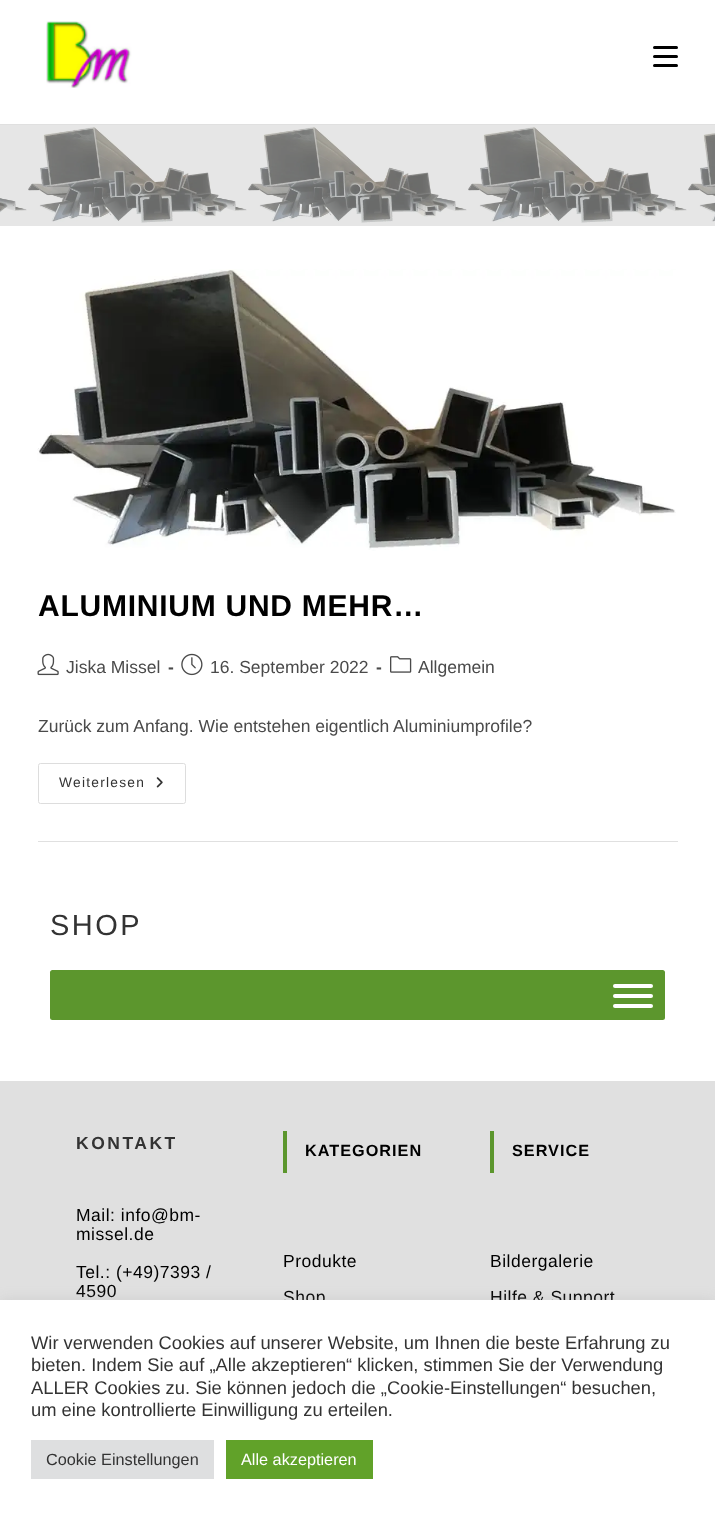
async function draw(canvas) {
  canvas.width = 715;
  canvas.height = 1516;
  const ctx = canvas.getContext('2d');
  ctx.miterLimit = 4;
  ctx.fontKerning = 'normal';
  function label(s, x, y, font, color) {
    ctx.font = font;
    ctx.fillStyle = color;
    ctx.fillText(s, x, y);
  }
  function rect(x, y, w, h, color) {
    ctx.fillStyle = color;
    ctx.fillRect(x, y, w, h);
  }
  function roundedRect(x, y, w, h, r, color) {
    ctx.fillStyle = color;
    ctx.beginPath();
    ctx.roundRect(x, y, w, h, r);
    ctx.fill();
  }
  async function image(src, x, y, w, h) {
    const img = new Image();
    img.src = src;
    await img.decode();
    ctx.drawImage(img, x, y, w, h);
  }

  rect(0, 0, 715, 1516, '#fff');
  rect(0, 124, 715, 1, '#e0e0e0');
  await image('assets/img1.png', 46, 21, 86, 67);
  roundedRect(653, 55, 25, 3, 1.5, '#000');
  roundedRect(653, 46, 25, 3, 1.5, '#000');
  roundedRect(653, 64, 25, 3, 1.5, '#000');
  await image('assets/img2.png', 0, 125, 715, 101);
  rect(38, 841, 640, 1, '#e0e0e0');
  await image('assets/img3.png', 37, 269, 639, 282);
  ctx.letterSpacing = '0.75px';
  label('ALUMINIUM UND MEHR…', 38, 616, 'bold 30px Liberation Sans', '#000');
  await image('assets/img4.png', 37, 653, 22, 23);
  ctx.letterSpacing = '0px';
  label('Jiska Missel', 66, 673, '17.5px Liberation Sans', '#4a4a4a');
  label('-', 168, 673, 'bold 17.5px Liberation Sans', '#4a4a4a');
  await image('assets/img5.png', 181, 653, 22, 23);
  label('16. September 2022', 210, 673, '17.5px Liberation Sans', '#4a4a4a');
  label('-', 376, 673, 'bold 17.5px Liberation Sans', '#4a4a4a');
  await image('assets/img6.png', 390, 656, 22, 17);
  label('Allgemein', 418, 673, '17.5px Liberation Sans', '#4a4a4a');
  label('Zurück zum Anfang. Wie entstehen eigentlich Aluminiumprofile?', 38, 732, '17.5px Liberation Sans', '#4a4a4a');
  ctx.beginPath();
  ctx.roundRect(38.5, 763.5, 147, 40, 2);
  ctx.strokeStyle = '#ddd';
  ctx.stroke();
  ctx.letterSpacing = '1.25px';
  label('Weiterlesen', 59, 787, '13.75px Liberation Sans', '#333');
  await image('assets/img7.png', 156, 777, 7, 11);
  ctx.letterSpacing = '2.5px';
  label('SHOP', 50, 935, '29px Liberation Sans', '#333');
  roundedRect(50, 970, 615, 50, 2.5, '#5c962d');
  roundedRect(613, 984, 40, 4, 2, '#fff');
  roundedRect(613, 994, 40, 4, 2, '#fff');
  roundedRect(613, 1004, 40, 4, 2, '#fff');
  rect(0, 1081, 715, 219, '#e0e0e0');
  label('KONTAKT', 76, 1149, 'bold 17.5px Liberation Sans', '#333');
  ctx.letterSpacing = '0.5px';
  label('Mail: info@bm-', 76, 1221, '17.5px Liberation Sans', '#000');
  label('missel.de', 76, 1240, '17.5px Liberation Sans', '#000');
  label('Tel.: (+49)7393 /', 76, 1278, '17.5px Liberation Sans', '#000');
  label('4590', 76, 1297, '17.5px Liberation Sans', '#000');
  rect(283, 1131, 4, 42, '#5c962d');
  ctx.letterSpacing = '1px';
  label('KATEGORIEN', 305, 1156, 'bold 16.25px Liberation Sans', '#000');
  ctx.letterSpacing = '0.5px';
  label('Produkte', 283, 1267, '17.5px Liberation Sans', '#000');
  label('Shop', 283, 1303, '17.5px Liberation Sans', '#000');
  rect(490, 1131, 4, 42, '#5c962d');
  ctx.letterSpacing = '1px';
  label('SERVICE', 512, 1156, 'bold 16.25px Liberation Sans', '#000');
  ctx.letterSpacing = '0.5px';
  label('Bildergalerie', 490, 1267, '17.5px Liberation Sans', '#000');
  label('Hilfe & Support', 490, 1303, '17.5px Liberation Sans', '#000');
  ctx.fillStyle = '#acabab4d';
  ctx.filter = 'blur(6px)';
  ctx.beginPath();
  ctx.rect(0, 1299, 715, 216);
  ctx.fill();
  ctx.filter = 'none';
  rect(0, 1300, 715, 216, '#fff');
  ctx.letterSpacing = '0px';
  label('Wir verwenden Cookies auf unserer Website, um Ihnen die beste Erfahrung zu', 31, 1349, '18.35px Liberation Sans', '#333');
  label('bieten. Indem Sie auf „Alle akzeptieren“ klicken, stimmen Sie der Verwendung', 31, 1371, '18.35px Liberation Sans', '#333');
  label('ALLER Cookies zu. Sie können jedoch die „Cookie-Einstellungen“ besuchen,', 31, 1394, '18.35px Liberation Sans', '#333');
  label('um eine kontrollierte Einwilligung zu erteilen.', 31, 1416, '18.35px Liberation Sans', '#333');
  rect(31, 1440, 183, 39, '#dedfe0');
  label('Cookie Einstellungen', 46, 1465, '16.25px Liberation Sans', '#333');
  rect(226, 1440, 147, 39, '#61a229');
  label('Alle akzeptieren', 241, 1465, '16.25px Liberation Sans', '#fff');
}

draw(document.querySelector('canvas'));
